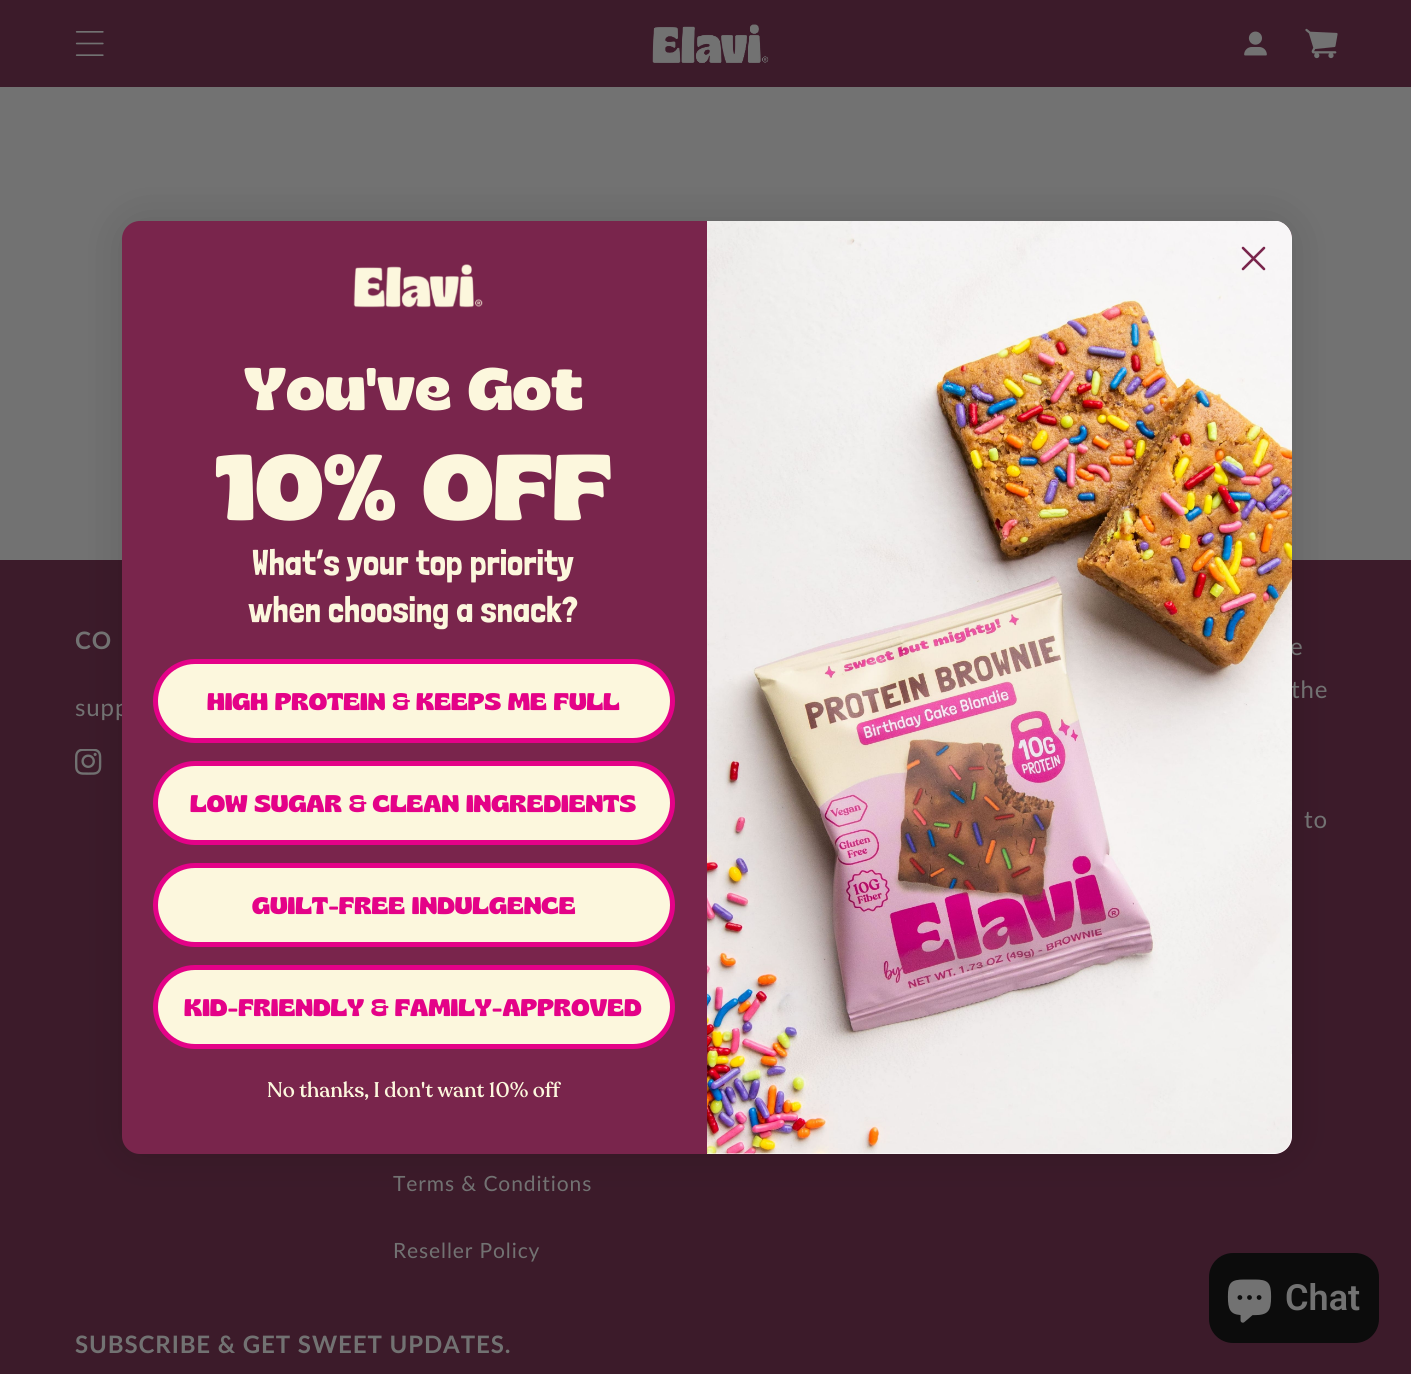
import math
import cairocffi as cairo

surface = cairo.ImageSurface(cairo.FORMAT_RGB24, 1411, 1374)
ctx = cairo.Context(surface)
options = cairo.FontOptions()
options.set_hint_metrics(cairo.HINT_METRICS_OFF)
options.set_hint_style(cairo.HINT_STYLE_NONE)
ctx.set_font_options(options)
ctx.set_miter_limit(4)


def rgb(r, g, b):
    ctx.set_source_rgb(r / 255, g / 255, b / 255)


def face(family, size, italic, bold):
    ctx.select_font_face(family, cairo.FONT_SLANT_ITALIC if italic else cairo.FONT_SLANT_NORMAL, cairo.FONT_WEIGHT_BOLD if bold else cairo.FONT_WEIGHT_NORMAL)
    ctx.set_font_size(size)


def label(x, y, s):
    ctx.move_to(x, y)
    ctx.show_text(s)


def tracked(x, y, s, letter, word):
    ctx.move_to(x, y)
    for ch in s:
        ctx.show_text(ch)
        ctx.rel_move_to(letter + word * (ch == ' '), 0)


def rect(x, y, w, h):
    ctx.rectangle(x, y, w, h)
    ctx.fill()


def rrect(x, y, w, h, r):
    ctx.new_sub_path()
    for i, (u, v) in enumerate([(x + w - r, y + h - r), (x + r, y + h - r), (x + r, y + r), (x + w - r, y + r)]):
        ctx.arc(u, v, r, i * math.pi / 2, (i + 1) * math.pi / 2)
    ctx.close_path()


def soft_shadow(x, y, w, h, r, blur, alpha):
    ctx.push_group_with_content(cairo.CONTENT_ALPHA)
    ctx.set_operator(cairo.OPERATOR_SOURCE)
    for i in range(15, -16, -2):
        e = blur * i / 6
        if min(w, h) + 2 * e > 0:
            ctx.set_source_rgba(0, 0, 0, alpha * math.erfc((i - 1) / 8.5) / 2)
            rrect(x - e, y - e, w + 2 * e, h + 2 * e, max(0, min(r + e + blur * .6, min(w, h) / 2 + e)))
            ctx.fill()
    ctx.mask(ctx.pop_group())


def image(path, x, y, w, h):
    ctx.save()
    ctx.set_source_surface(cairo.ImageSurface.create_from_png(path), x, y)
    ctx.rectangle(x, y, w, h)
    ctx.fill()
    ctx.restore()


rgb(114, 114, 114)
ctx.paint()
rgb(60, 27, 42)
rect(0, 0, 1411, 87)
image('image0.png', 75, 31, 29, 25)
image('image1.png', 652, 24, 117, 39)
image('image2.png', 1244, 31, 23, 25)
image('image3.png', 1305, 28, 33, 31)
rect(0, 560, 1411, 814)
image('image6.png', 75, 749, 27, 26)
rgb(0, 0, 0)
soft_shadow(122, 221, 1170, 933, 18, 22.5, 0.15)
face('Lato', 24, 0, 0)
rgb(114, 114, 114)
tracked(75, 716, 'supp', 0.9, 0)
tracked(1290, 655, 'e', 0.9, 0)
tracked(1291, 698, 'the', 0.9, 0)
rgb(121, 37, 76)
rrect(122, 221, 1170, 933, 18)
ctx.fill()
rgb(255, 255, 255)
ctx.new_path()
ctx.move_to(707, 221)
ctx.line_to(1274, 221)
ctx.curve_to(1284, 221, 1292, 229, 1292, 239)
ctx.line_to(1292, 1136)
ctx.curve_to(1292, 1146, 1284, 1154, 1274, 1154)
ctx.line_to(707, 1154)
ctx.close_path()
ctx.fill()
image('image5.png', 707, 221, 585, 933)
ctx.new_path()
ctx.move_to(1243, 248)
ctx.line_to(1264, 269)
ctx.move_to(1243, 269)
ctx.line_to(1264, 248)
ctx.close_path()
rgb(121, 37, 76)
ctx.set_line_width(2.6)
ctx.set_line_cap(cairo.LINE_CAP_ROUND)
ctx.set_line_join(cairo.LINE_JOIN_ROUND)
ctx.stroke()
image('image4.png', 353, 264, 130, 44)
face('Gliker', 60, 0, 1)
rgb(252, 247, 221)
label(244, 410, 'You\'ve Got')
face('Gliker', 93, 0, 1)
label(215, 520, '10% OFF')
face('Londrina Solid', 36, 0, 0)
label(252, 575, 'What’s your top priority')
label(248, 622, 'when choosing a snack?')
rrect(155.5, 661.5, 517, 79, 39.5)
ctx.fill_preserve()
rgb(228, 2, 136)
ctx.set_line_width(5)
ctx.set_line_cap(cairo.LINE_CAP_BUTT)
ctx.set_line_join(cairo.LINE_JOIN_MITER)
ctx.stroke()
face('Gliker', 24, 0, 1)
label(207, 710, 'HIGH PROTEIN & KEEPS ME FULL')
rgb(252, 247, 221)
rrect(155.5, 763.5, 517, 79, 39.5)
ctx.fill_preserve()
rgb(228, 2, 136)
ctx.stroke()
label(190, 812, 'LOW SUGAR & CLEAN INGREDIENTS')
rgb(252, 247, 221)
rrect(155.5, 865.5, 517, 79, 39.5)
ctx.fill_preserve()
rgb(228, 2, 136)
ctx.stroke()
label(252, 914, 'GUILT-FREE INDULGENCE')
rgb(252, 247, 221)
rrect(155.5, 967.5, 517, 79, 39.5)
ctx.fill_preserve()
rgb(228, 2, 136)
ctx.stroke()
label(184, 1016, 'KID-FRIENDLY & FAMILY-APPROVED')
face('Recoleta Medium', 21, 0, 0)
rgb(252, 247, 221)
label(267, 1097, 'No thanks, I don\'t want 10% off')
face('Lato', 24, 0, 1)
rgb(114, 114, 114)
tracked(75, 649, 'CO', 0.9, 0)
face('Lato', 24, 0, 0)
tracked(1304, 828, 'to', 0.9, 0)
face('Lato', 21, 0, 0)
tracked(393, 1191, 'Terms & Conditions', 0.9, 0)
tracked(393, 1258, 'Reseller Policy', 0.9, 0)
face('Lato', 24, 0, 1)
tracked(75, 1353, 'SUBSCRIBE & GET SWEET UPDATES.', 0.9, 0)
rgb(12, 12, 12)
rrect(1209, 1253, 170, 90, 24)
ctx.fill()
image('image7.png', 1227, 1279, 45, 44)
face('Roboto SemiBold', 36, 0, 0)
rgb(114, 114, 114)
label(1285, 1310, 'Chat')
surface.write_to_png('render.png')
